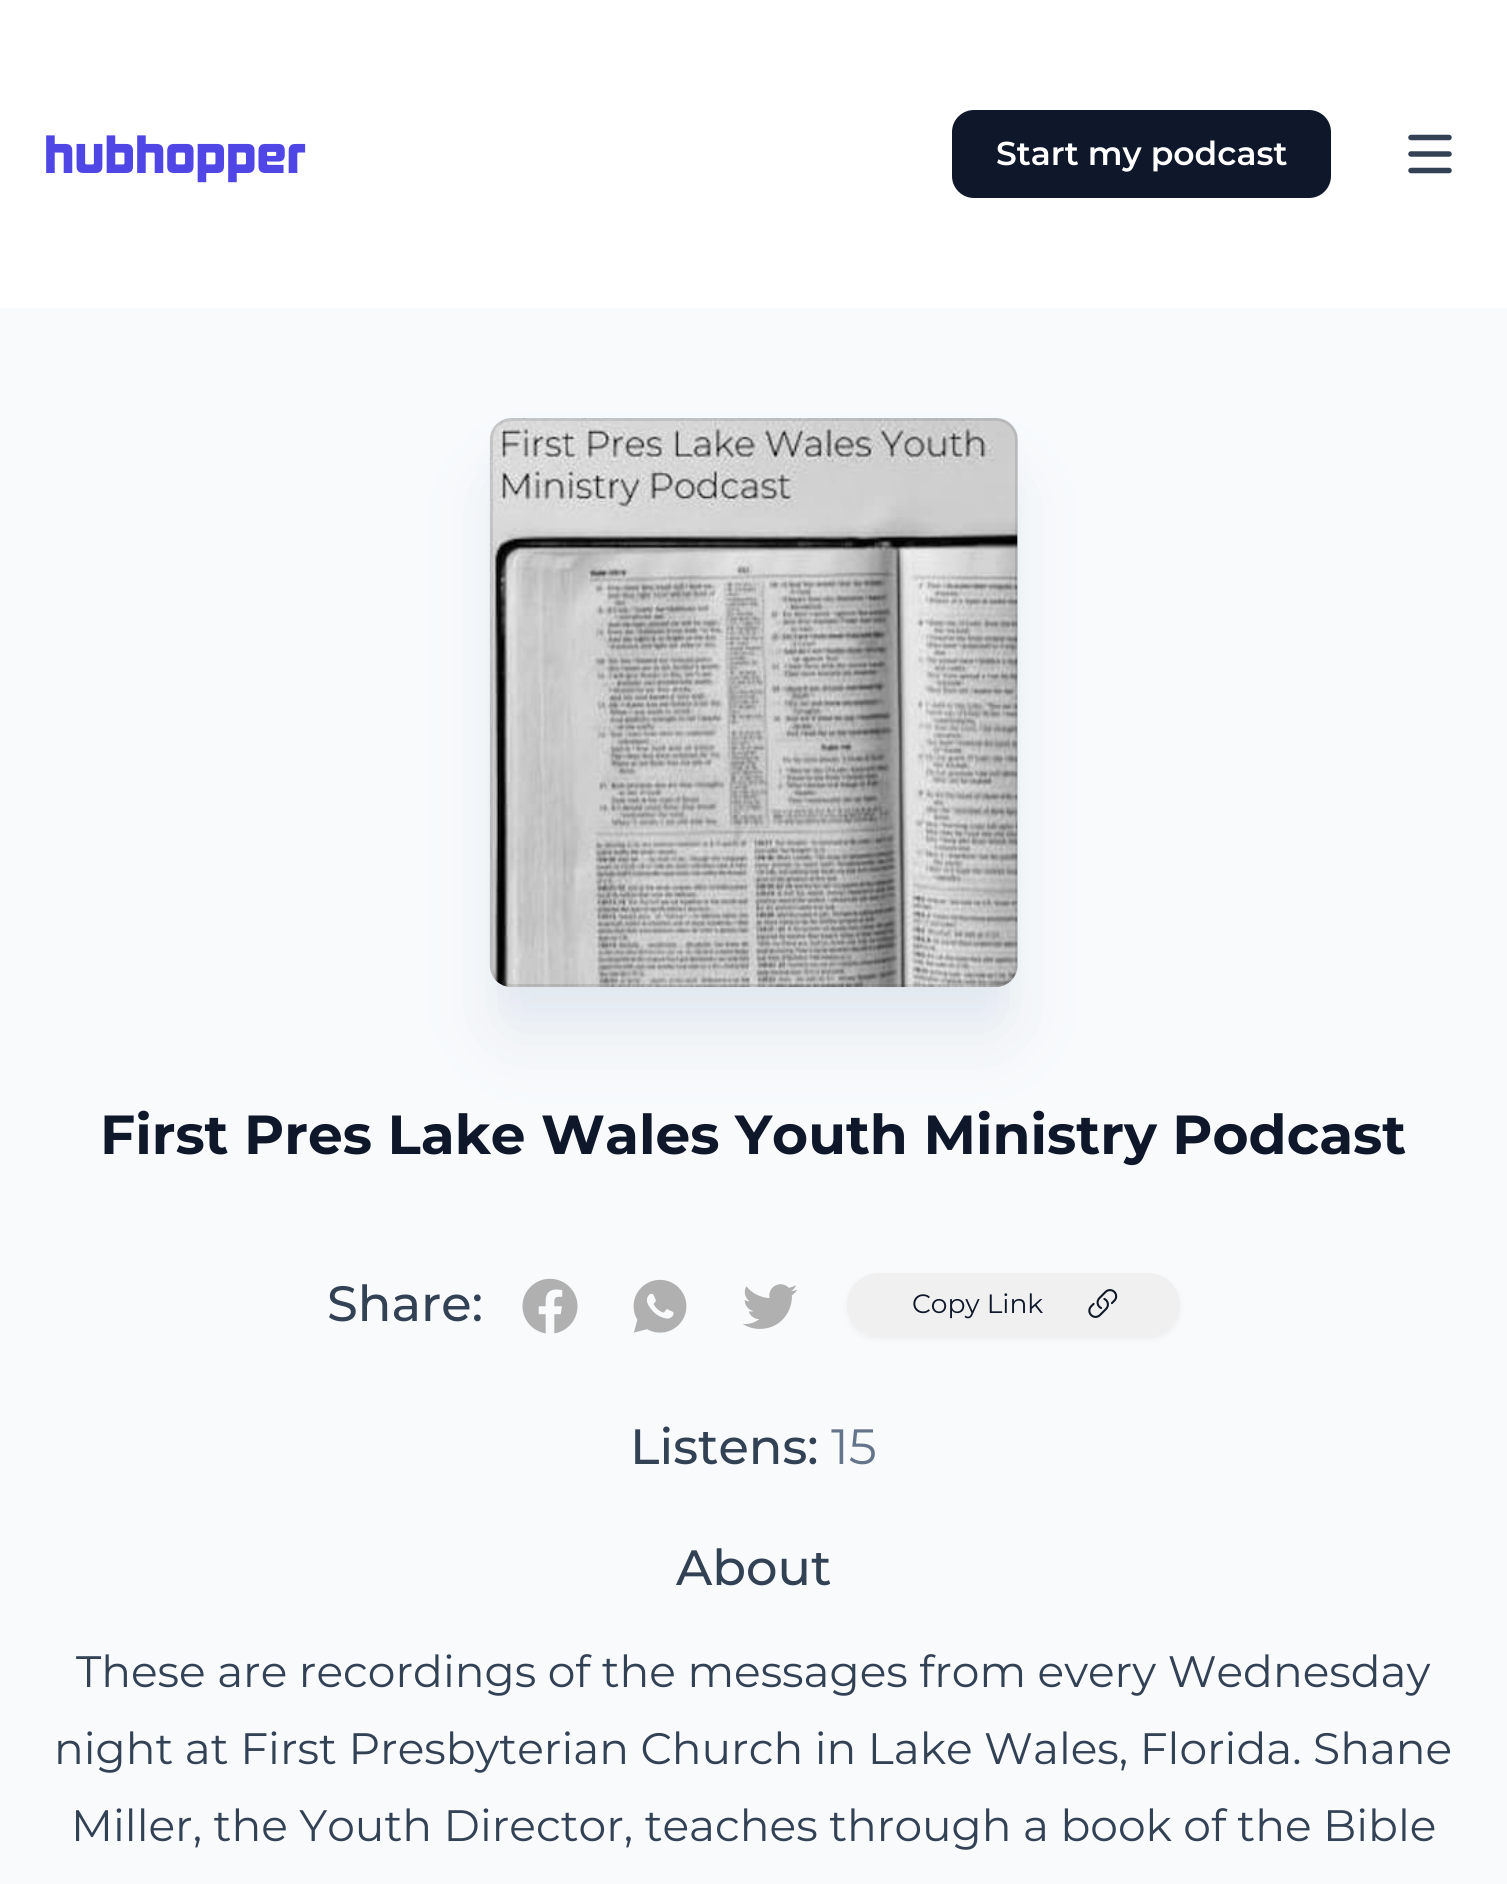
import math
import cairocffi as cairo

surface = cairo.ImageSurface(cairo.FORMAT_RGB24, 1507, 1884)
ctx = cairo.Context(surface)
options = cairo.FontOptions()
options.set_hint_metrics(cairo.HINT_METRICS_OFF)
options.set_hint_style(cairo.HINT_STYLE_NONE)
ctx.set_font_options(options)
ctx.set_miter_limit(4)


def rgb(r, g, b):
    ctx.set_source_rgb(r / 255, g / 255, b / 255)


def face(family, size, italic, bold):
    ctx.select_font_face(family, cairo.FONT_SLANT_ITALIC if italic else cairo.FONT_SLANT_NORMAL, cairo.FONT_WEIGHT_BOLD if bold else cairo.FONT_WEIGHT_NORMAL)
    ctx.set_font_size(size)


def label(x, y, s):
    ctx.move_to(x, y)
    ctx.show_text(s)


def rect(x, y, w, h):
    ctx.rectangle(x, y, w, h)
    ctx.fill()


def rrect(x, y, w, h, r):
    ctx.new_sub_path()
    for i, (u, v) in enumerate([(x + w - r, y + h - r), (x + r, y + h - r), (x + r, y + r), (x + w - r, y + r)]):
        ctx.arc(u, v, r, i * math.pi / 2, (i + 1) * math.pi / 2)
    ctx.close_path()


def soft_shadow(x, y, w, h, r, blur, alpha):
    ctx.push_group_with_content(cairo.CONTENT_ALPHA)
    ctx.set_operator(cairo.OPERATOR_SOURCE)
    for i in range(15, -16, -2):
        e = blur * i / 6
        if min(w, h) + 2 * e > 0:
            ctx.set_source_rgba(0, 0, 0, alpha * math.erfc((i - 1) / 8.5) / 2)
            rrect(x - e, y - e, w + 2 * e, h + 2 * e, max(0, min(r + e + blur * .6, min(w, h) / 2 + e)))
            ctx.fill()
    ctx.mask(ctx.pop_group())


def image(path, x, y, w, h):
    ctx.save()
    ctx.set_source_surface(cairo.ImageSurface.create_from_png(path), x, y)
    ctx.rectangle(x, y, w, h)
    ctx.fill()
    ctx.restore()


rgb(255, 255, 255)
ctx.paint()
face('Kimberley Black', 49.5, 0, 0)
rgb(79, 70, 229)
label(44, 173, 'hubhopper')
rgb(15, 23, 42)
rrect(952, 110, 379, 88, 22)
ctx.fill()
face('Montserrat SemiBold', 33, 0, 0)
rgb(255, 255, 255)
label(996, 165, 'Start my podcast')
ctx.new_path()
ctx.move_to(1411, 137.5)
ctx.line_to(1449, 137.5)
ctx.move_to(1411, 154)
ctx.line_to(1449, 154)
ctx.move_to(1411, 170.5)
ctx.line_to(1449, 170.5)
rgb(51, 65, 85)
ctx.set_line_width(5.5)
ctx.set_line_cap(cairo.LINE_CAP_ROUND)
ctx.stroke()
rgb(248, 250, 252)
rect(0, 308, 1507, 1576)
rgb(226, 232, 240)
soft_shadow(506, 457, 495, 536, 6, 14, 1)
soft_shadow(503, 487, 501, 542, 8, 34.5, 1)
rgb(226, 232, 240)
rrect(490, 418, 528, 569, 22)
ctx.fill()
image('image0.png', 489, 418, 529, 570)
rrect(491.5, 419.5, 525, 566, 20.5)
ctx.set_source_rgba(0, 0, 0, 0.1)
ctx.set_line_width(3)
ctx.set_line_cap(cairo.LINE_CAP_BUTT)
ctx.stroke()
face('Montserrat', 55, 0, 1)
rgb(15, 23, 42)
label(100, 1154, 'First Pres Lake Wales Youth Ministry Podcast')
face('Montserrat Medium', 49.5, 0, 0)
rgb(51, 65, 85)
label(327, 1321, 'Share:')
image('image1.png', 522, 1278, 56, 56)
image('image2.png', 633, 1279, 54, 54)
image('image3.png', 743, 1284, 55, 45)
rgb(0, 0, 0)
soft_shadow(847, 1276, 333, 63, 31.5, 3, 0.05)
rgb(240, 240, 240)
rrect(847, 1273, 333, 64, 32)
ctx.fill()
face('Montserrat', 26.5, 0, 0)
rgb(15, 23, 42)
label(912, 1313, 'Copy Link')
image('image4.png', 1088, 1289, 30, 29)
face('Montserrat Medium', 49.5, 0, 0)
rgb(51, 65, 85)
label(630, 1464, 'Listens:')
face('Montserrat', 49.5, 0, 0)
rgb(100, 116, 139)
label(831, 1464, '15')
face('Montserrat Medium', 49.5, 0, 0)
rgb(51, 65, 85)
label(676, 1585, 'About')
face('Montserrat', 44, 0, 0)
label(76, 1687, 'These are recordings of the messages from every Wednesday')
label(54, 1764, 'night at First Presbyterian Church in Lake Wales, Florida. Shane')
label(71, 1841, 'Miller, the Youth Director, teaches through a book of the Bible')
surface.write_to_png('render.png')
